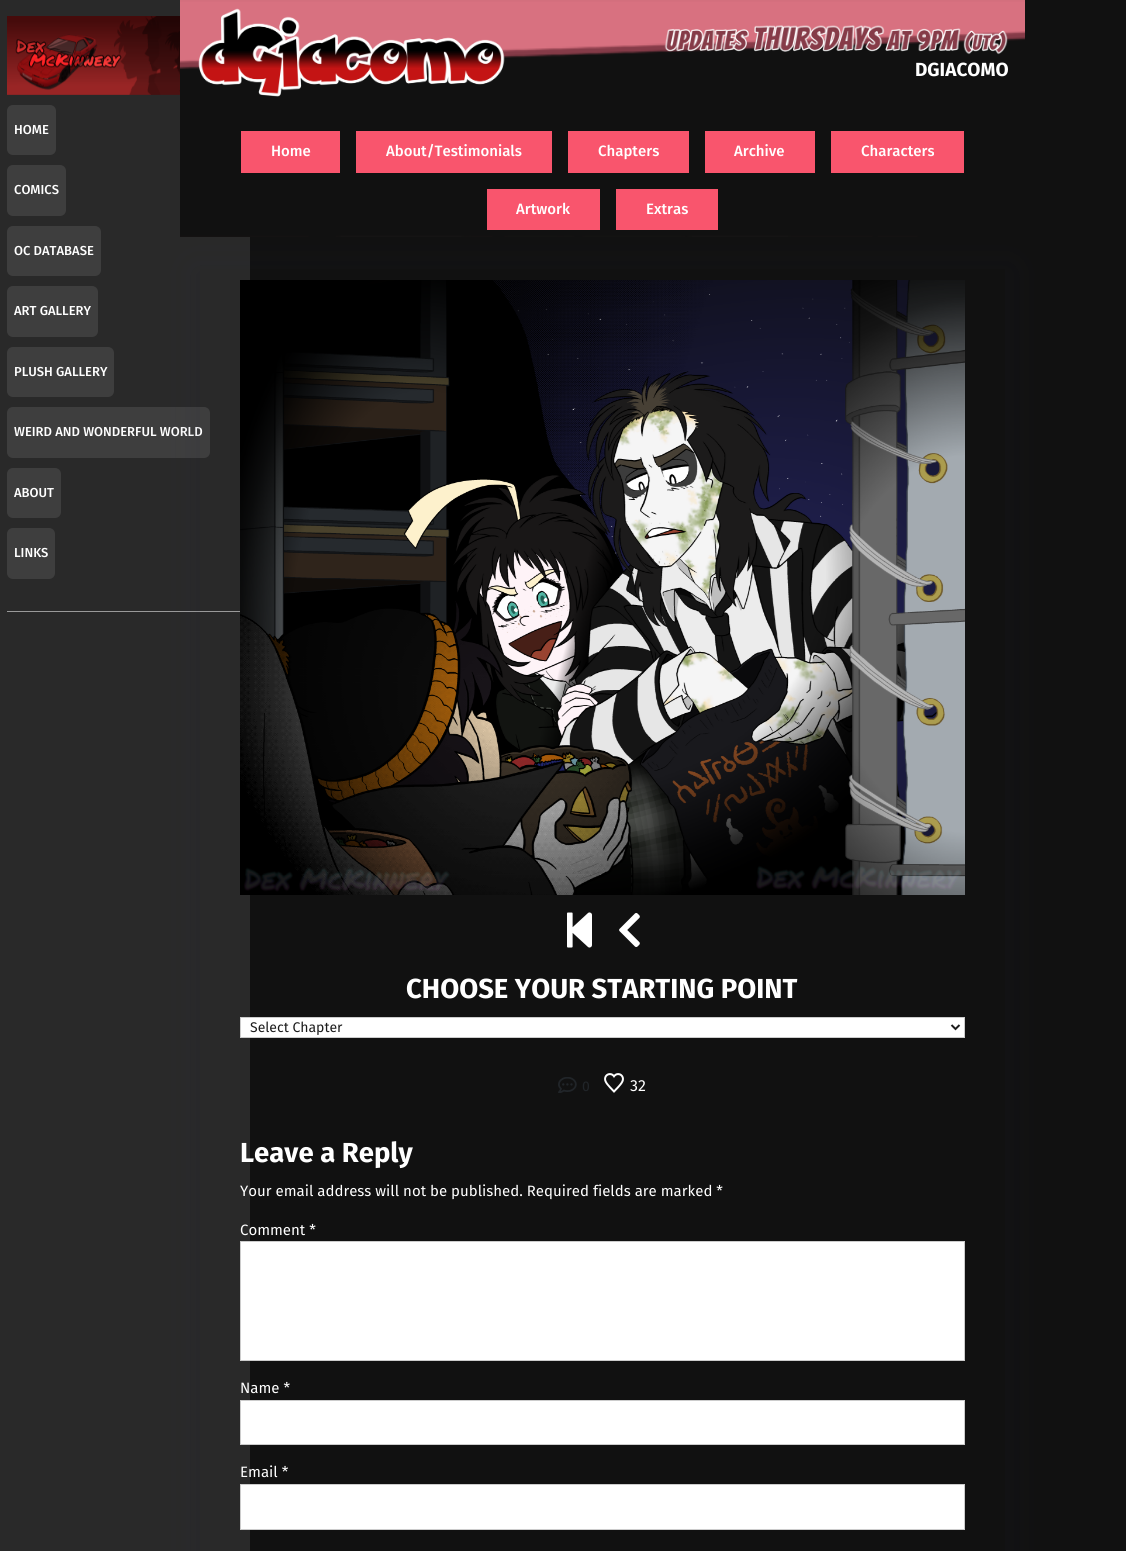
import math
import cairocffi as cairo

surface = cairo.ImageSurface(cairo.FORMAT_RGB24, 1126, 1551)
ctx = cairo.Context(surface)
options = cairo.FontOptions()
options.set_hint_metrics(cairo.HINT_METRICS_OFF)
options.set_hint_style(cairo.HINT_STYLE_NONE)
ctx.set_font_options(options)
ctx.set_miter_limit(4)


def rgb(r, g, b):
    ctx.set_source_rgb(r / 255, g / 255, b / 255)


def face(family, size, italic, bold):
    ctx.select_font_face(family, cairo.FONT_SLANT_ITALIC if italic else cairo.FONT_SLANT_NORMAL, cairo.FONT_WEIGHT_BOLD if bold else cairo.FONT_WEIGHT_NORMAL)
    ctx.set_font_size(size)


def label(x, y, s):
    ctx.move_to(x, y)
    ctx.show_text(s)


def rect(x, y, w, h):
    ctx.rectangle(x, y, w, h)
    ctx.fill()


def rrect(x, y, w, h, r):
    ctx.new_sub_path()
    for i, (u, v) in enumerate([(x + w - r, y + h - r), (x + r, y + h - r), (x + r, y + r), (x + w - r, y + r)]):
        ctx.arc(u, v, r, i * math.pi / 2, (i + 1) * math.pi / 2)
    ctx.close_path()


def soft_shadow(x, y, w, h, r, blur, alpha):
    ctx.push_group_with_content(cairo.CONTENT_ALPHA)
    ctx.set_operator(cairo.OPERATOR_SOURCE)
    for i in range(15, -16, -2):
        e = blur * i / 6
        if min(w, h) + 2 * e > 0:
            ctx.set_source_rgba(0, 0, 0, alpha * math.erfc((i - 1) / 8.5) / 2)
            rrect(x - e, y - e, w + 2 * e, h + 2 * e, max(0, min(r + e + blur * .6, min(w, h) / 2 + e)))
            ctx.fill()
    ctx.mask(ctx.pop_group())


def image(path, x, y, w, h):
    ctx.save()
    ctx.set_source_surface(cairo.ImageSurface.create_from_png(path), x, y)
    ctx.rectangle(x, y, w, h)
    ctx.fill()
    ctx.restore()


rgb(17, 17, 17)
ctx.paint()
rgb(41, 41, 41)
rect(0, 0, 250, 1551)
image('image0.png', 7, 16, 173, 79)
rgb(62, 62, 62)
rrect(7, 105, 49, 50, 6)
ctx.fill()
face('Fira Sans Medium', 13, 0, 0)
rgb(255, 255, 255)
label(14, 134, 'HOME')
rgb(62, 62, 62)
rrect(7, 165, 59, 51, 6)
ctx.fill()
rgb(255, 255, 255)
label(14, 194, 'COMICS')
rgb(62, 62, 62)
rrect(7, 226, 94, 50, 6)
ctx.fill()
rgb(255, 255, 255)
label(14, 255, 'OC DATABASE')
rgb(62, 62, 62)
rrect(7, 286, 91, 51, 6)
ctx.fill()
rgb(255, 255, 255)
label(14, 315, 'ART GALLERY')
rgb(62, 62, 62)
rrect(7, 347, 107, 50, 6)
ctx.fill()
rgb(255, 255, 255)
label(14, 376, 'PLUSH GALLERY')
rgb(62, 62, 62)
rrect(7, 407, 203, 51, 6)
ctx.fill()
rgb(255, 255, 255)
label(14, 436, 'WEIRD AND WONDERFUL WORLD')
rgb(62, 62, 62)
rrect(7, 468, 54, 50, 6)
ctx.fill()
rgb(255, 255, 255)
label(14, 497, 'ABOUT')
rgb(62, 62, 62)
rrect(7, 528, 48, 51, 6)
ctx.fill()
rgb(255, 255, 255)
label(14, 557, 'LINKS')
rgb(153, 153, 153)
rect(7, 611, 236, 1)
image('image1.png', 180, 0, 845, 237)
image('image2.png', 198, 8, 307, 89)
image('image3.png', 664, 25, 344, 30)
face('Fira Sans', 19, 0, 1)
rgb(255, 255, 255)
label(915, 76, 'DGIACOMO')
rgb(249, 85, 109)
rect(241, 131, 99, 42)
face('Fira Sans Medium', 15, 0, 0)
rgb(255, 255, 255)
label(271, 156, 'Home')
rgb(249, 85, 109)
rect(356, 131, 196, 42)
rgb(255, 255, 255)
label(386, 156, 'About/Testimonials')
rgb(249, 85, 109)
rect(568, 131, 121, 42)
rgb(255, 255, 255)
label(598, 156, 'Chapters')
rgb(249, 85, 109)
rect(705, 131, 110, 42)
rgb(255, 255, 255)
label(734, 156, 'Archive')
rgb(249, 85, 109)
rect(831, 131, 133, 42)
rgb(255, 255, 255)
label(861, 156, 'Characters')
rgb(249, 85, 109)
rect(487, 189, 113, 41)
rgb(255, 255, 255)
label(516, 214, 'Artwork')
rgb(249, 85, 109)
rect(616, 189, 102, 41)
rgb(255, 255, 255)
label(646, 214, 'Extras')
ctx.save()
ctx.set_fill_rule(cairo.FILL_RULE_EVEN_ODD)
ctx.new_path()
ctx.move_to(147, 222)
ctx.line_to(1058, 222)
ctx.line_to(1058, 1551)
ctx.line_to(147, 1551)
ctx.close_path()
ctx.move_to(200, 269)
ctx.line_to(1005, 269)
ctx.line_to(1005, 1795)
ctx.line_to(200, 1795)
ctx.close_path()
ctx.clip()
rgb(33, 37, 71)
soft_shadow(193, 268, 819, 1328, 0, 15, 0.1)
ctx.restore()
image('image4.png', 240, 280, 725, 615)
image('image5.png', 567, 912, 25, 36)
image('image6.png', 619, 913, 21, 34)
face('Fira Sans', 27.5, 0, 1)
label(406, 998, 'CHOOSE YOUR STARTING POINT')
ctx.rectangle(240.5, 1017.5, 724, 20)
ctx.fill_preserve()
rgb(204, 204, 204)
ctx.set_line_width(1)
ctx.stroke()
ctx.new_path()
ctx.move_to(951.5, 1025)
ctx.line_to(955.5, 1029)
ctx.line_to(959.5, 1025)
rgb(28, 28, 28)
ctx.set_line_width(2)
ctx.stroke()
face('Fira Sans', 14, 0, 0)
label(250, 1032, 'Select Chapter')
image('image7.png', 558, 1077, 19, 16)
rgb(33, 37, 41)
label(582, 1091, '0')
image('image8.png', 604, 1073, 20, 20)
face('Fira Sans', 16, 0, 0)
rgb(255, 255, 255)
label(630, 1091, '32')
face('Fira Sans', 27.5, 0, 1)
label(240, 1162, 'Leave a Reply')
face('Fira Sans', 15, 0, 0)
label(240, 1196, 'Your email address will not be published. Required fields are marked *')
label(240, 1235, 'Comment *')
ctx.rectangle(240.5, 1241.5, 724, 119)
ctx.fill_preserve()
rgb(204, 204, 204)
ctx.set_line_width(1)
ctx.stroke()
rgb(255, 255, 255)
label(240, 1393, 'Name *')
ctx.rectangle(240.5, 1400.5, 724, 44)
ctx.fill_preserve()
rgb(204, 204, 204)
ctx.stroke()
rgb(255, 255, 255)
label(240, 1477, 'Email *')
ctx.rectangle(240.5, 1484.5, 724, 45)
ctx.fill_preserve()
rgb(204, 204, 204)
ctx.stroke()
surface.write_to_png('render.png')
